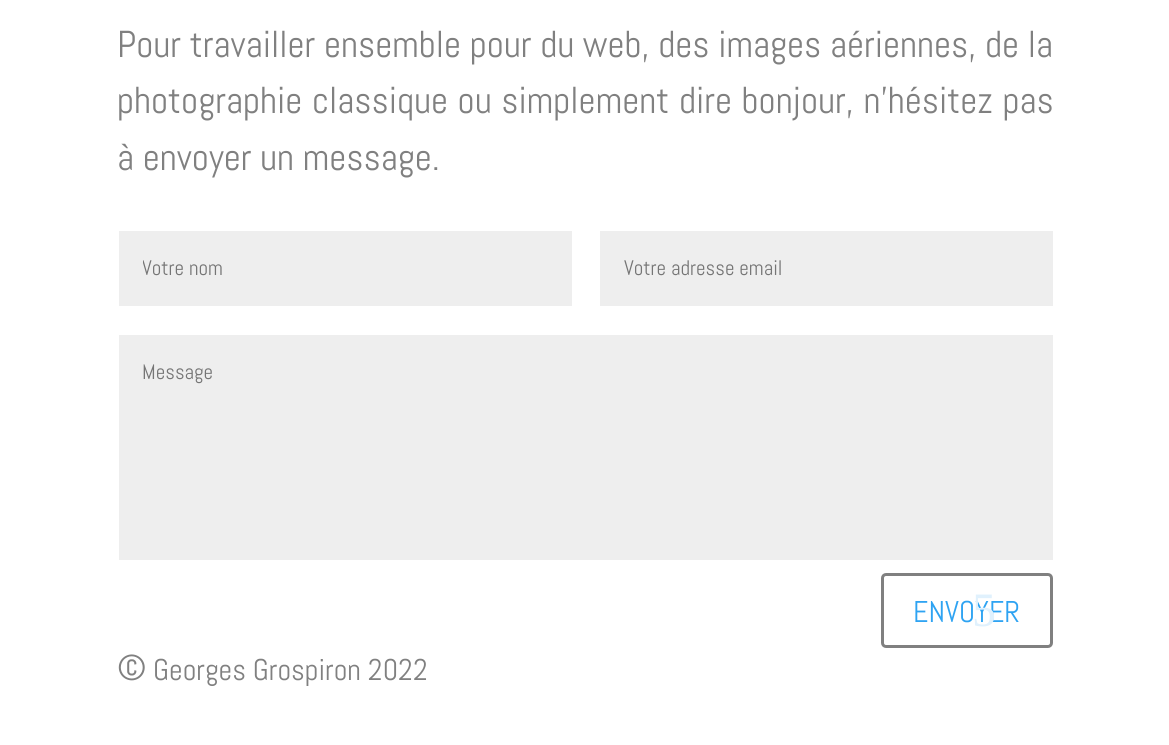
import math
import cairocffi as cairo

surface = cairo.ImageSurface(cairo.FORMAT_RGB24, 1169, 745)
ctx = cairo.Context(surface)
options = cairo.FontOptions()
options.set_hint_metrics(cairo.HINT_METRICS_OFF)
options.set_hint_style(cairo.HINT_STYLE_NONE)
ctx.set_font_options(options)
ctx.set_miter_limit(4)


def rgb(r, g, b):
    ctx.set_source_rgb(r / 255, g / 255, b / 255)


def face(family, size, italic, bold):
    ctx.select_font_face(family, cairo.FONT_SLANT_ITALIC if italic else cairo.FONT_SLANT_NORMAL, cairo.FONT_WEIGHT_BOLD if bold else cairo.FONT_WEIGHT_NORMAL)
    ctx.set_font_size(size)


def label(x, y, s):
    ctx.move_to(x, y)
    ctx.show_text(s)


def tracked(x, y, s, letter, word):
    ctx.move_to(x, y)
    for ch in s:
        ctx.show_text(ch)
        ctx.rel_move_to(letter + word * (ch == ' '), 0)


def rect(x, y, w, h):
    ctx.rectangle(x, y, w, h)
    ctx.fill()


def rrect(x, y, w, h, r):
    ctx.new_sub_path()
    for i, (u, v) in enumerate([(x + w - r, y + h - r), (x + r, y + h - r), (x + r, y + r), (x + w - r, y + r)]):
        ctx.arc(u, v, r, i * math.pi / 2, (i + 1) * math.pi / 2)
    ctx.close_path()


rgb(255, 255, 255)
ctx.paint()
face('Abel', 37.5, 0, 0)
rgb(128, 128, 128)
label(117, 57, 'Pour travailler ensemble pour du web, des images aériennes, de la')
tracked(117, 113, 'photographie classique ou simplement dire bonjour, n’hésitez pas', 0, 1)
label(117, 170, 'à envoyer un message.')
rgb(238, 238, 238)
rect(119, 231, 453, 75)
ctx.save()
ctx.rectangle(143, 255, 405, 27)
ctx.clip()
face('Abel', 21, 0, 0)
rgb(117, 117, 117)
label(142, 275, 'Votre nom')
ctx.restore()
rect(600, 231, 453, 75)
face('Abel', 21, 0, 0)
rgb(117, 117, 117)
label(624, 275, 'Votre adresse email')
rgb(238, 238, 238)
rect(119, 335, 934, 225)
rgb(117, 117, 117)
label(142, 379, 'Message')
rrect(882.5, 574.5, 169, 72, 3.5)
rgb(128, 128, 128)
ctx.set_line_width(3)
ctx.stroke()
face('Abel', 30, 0, 0)
rgb(46, 163, 242)
label(913, 622, 'ENVOYER')
face('Liberation Serif', 48, 0, 0)
rgb(224, 241, 253)
label(972, 626, '5')
face('Abel', 36, 0, 0)
rgb(128, 128, 128)
label(117, 680, '©')
face('Abel', 30, 0, 0)
label(153, 680, 'Georges Grospiron 2022')
surface.write_to_png('render.png')
